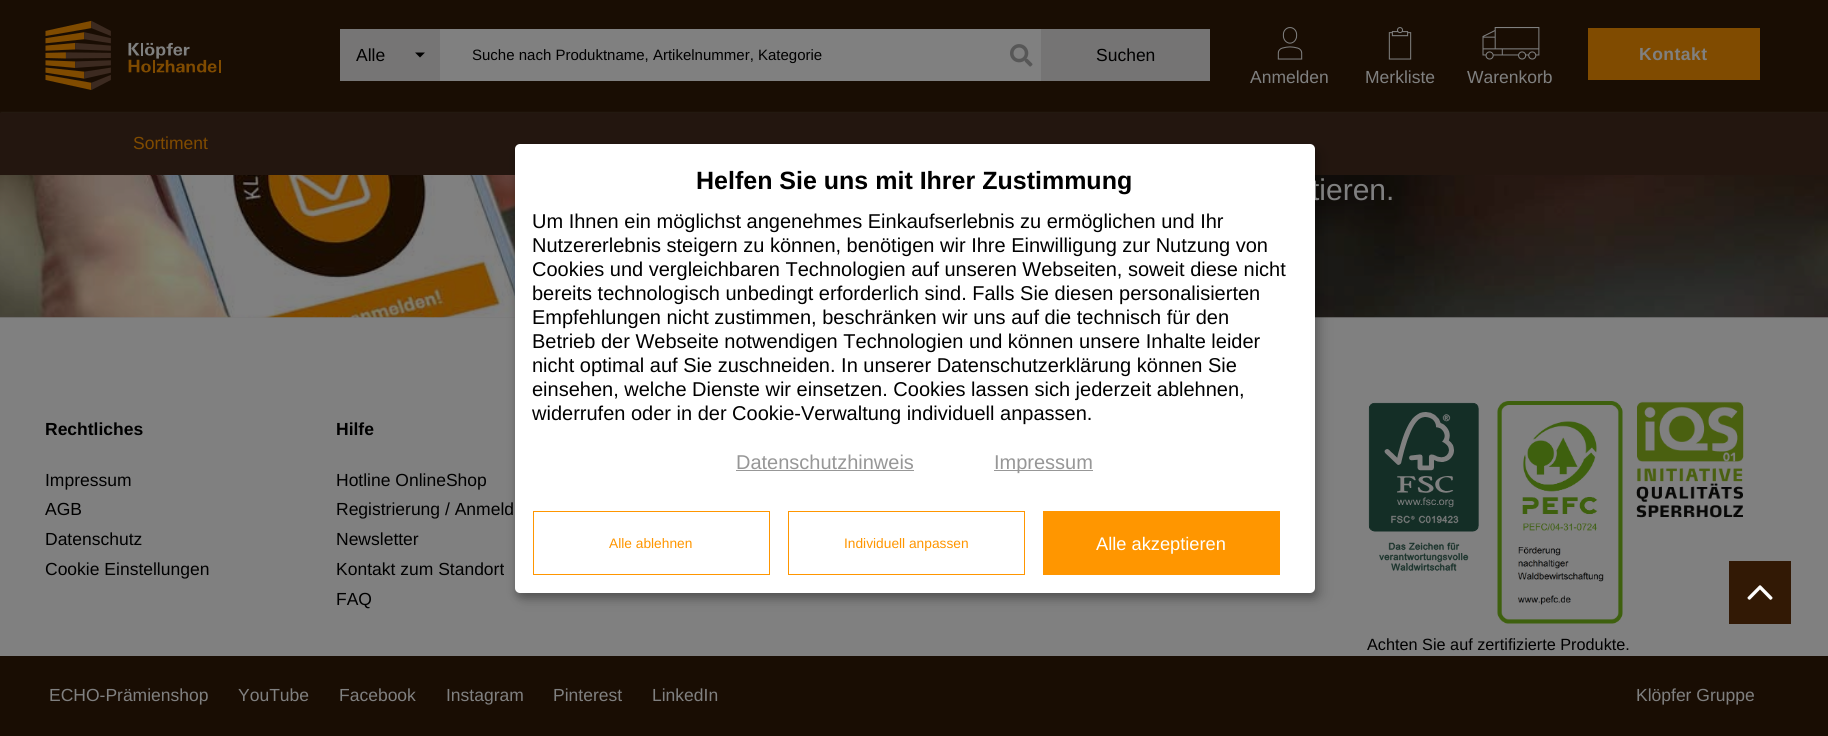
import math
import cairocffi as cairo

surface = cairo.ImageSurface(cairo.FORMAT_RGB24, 1828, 736)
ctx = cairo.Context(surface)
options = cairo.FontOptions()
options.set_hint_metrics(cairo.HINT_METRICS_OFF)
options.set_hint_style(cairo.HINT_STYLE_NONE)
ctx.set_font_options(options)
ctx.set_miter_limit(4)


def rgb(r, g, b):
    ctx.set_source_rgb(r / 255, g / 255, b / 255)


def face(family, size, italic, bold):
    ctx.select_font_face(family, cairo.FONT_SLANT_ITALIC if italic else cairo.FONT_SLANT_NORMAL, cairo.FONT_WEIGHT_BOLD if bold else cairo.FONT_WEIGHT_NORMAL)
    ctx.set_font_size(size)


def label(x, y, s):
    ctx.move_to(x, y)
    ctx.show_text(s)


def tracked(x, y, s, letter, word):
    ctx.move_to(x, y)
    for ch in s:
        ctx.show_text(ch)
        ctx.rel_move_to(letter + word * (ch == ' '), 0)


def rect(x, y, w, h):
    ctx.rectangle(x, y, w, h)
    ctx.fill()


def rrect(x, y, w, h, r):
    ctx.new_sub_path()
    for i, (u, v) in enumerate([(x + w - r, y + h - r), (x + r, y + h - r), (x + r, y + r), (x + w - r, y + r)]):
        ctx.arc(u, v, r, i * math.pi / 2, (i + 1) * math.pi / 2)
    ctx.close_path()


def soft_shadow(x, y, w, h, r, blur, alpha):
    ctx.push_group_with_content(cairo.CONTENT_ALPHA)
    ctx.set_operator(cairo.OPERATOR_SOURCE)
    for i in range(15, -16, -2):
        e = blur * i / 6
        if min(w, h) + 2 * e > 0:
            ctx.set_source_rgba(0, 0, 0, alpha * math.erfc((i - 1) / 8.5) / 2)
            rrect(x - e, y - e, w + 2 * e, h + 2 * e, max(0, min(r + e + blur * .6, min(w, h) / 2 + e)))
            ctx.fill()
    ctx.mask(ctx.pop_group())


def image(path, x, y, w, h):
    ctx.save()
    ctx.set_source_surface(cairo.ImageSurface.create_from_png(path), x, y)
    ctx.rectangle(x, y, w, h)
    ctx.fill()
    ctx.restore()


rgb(128, 128, 128)
ctx.paint()
rgb(25, 13, 3)
rect(0, 0, 1828, 113)
image('image0.png', 45, 20, 176, 70)
rgb(118, 117, 117)
rect(340, 29, 100, 52)
face('Liberation Sans', 17.5, 0, 0)
rgb(0, 0, 0)
label(356, 61, 'Alle')
ctx.new_path()
ctx.move_to(415, 52.5)
ctx.line_to(425, 52.5)
ctx.line_to(420, 57.5)
ctx.close_path()
ctx.fill()
rgb(128, 128, 128)
rect(440, 29, 601, 52)
face('Liberation Sans', 15, 0, 0)
rgb(0, 0, 0)
label(472, 60, 'Suche nach Produktname, Artikelnummer, Kategorie')
rgb(117, 116, 116)
rect(1041, 29, 169, 52)
image('image1.png', 1010, 44, 23, 23)
face('Liberation Sans', 17.5, 0, 0)
rgb(0, 0, 0)
label(1096, 61, 'Suchen')
rgb(128, 75, 0)
rect(1588, 28, 172, 52)
face('Liberation Sans', 17.5, 0, 1)
rgb(128, 128, 128)
tracked(1639, 60, 'Kontakt', 0.5, 0)
image('image2.png', 1277, 27, 26, 33)
face('Liberation Sans', 17.5, 0, 0)
label(1250, 83, 'Anmelden')
image('image3.png', 1388, 27, 24, 33)
label(1365, 83, 'Merkliste')
image('image4.png', 1482, 27, 58, 33)
label(1467, 83, 'Warenkorb')
rgb(123, 123, 123)
rect(0, 317, 1828, 1)
image('image5.png', 0, 175, 1828, 143)
rgb(128, 128, 128)
soft_shadow(1, 113, 1827, 60, 0, 1, 0.3)
rgb(35, 22, 15)
rect(0, 113, 1828, 62)
rgb(128, 75, 0)
label(133, 149, 'Sortiment')
rgb(0, 0, 0)
soft_shadow(521, 150, 800, 449, 5, 6, 0.19)
soft_shadow(515, 149, 800, 449, 5, 4, 0.2)
face('Liberation Sans', 30, 0, 0)
rgb(128, 128, 128)
label(1311, 200, 'tieren.')
rgb(255, 255, 255)
rrect(515, 144, 800, 449, 5)
ctx.fill()
face('Liberation Sans', 25, 0, 1)
rgb(0, 0, 0)
label(696, 189, 'Helfen Sie uns mit Ihrer Zustimmung')
face('Liberation Sans', 20, 0, 0)
label(532, 228, 'Um Ihnen ein möglichst angenehmes Einkaufserlebnis zu ermöglichen und Ihr')
label(532, 252, 'Nutzererlebnis steigern zu können, benötigen wir Ihre Einwilligung zur Nutzung von')
label(532, 276, 'Cookies und vergleichbaren Technologien auf unseren Webseiten, soweit diese nicht')
label(532, 300, 'bereits technologisch unbedingt erforderlich sind. Falls Sie diesen personalisierten')
label(532, 324, 'Empfehlungen nicht zustimmen, beschränken wir uns auf die technisch für den')
label(532, 348, 'Betrieb der Webseite notwendigen Technologien und können unsere Inhalte leider')
label(532, 372, 'nicht optimal auf Sie zuschneiden. In unserer Datenschutzerklärung können Sie')
label(532, 396, 'einsehen, welche Dienste wir einsetzen. Cookies lassen sich jederzeit ablehnen,')
label(532, 420, 'widerrufen oder in der Cookie-Verwaltung individuell anpassen.')
rgb(151, 151, 151)
label(736, 469, 'Datenschutzhinweis')
rect(736, 470, 178, 1)
rect(994, 470, 99, 1)
label(994, 469, 'Impressum')
ctx.rectangle(533.5, 511.5, 236, 63)
rgb(255, 150, 0)
ctx.set_line_width(1)
ctx.stroke()
face('Liberation Sans', 13.75, 0, 0)
label(609, 548, 'Alle ablehnen')
ctx.rectangle(788.5, 511.5, 236, 63)
ctx.stroke()
label(844, 548, 'Individuell anpassen')
rect(1043, 511, 237, 64)
face('Liberation Sans', 18.25, 0, 0)
rgb(255, 255, 255)
label(1096, 550, 'Alle akzeptieren')
face('Liberation Sans', 17.5, 0, 1)
rgb(0, 0, 0)
label(45, 435, 'Rechtliches')
face('Liberation Sans', 17.5, 0, 0)
label(45, 486, 'Impressum')
label(45, 515, 'AGB')
label(45, 545, 'Datenschutz')
label(45, 575, 'Cookie Einstellungen')
face('Liberation Sans', 17.5, 0, 1)
label(336, 435, 'Hilfe')
face('Liberation Sans', 17.5, 0, 0)
label(336, 486, 'Hotline OnlineShop')
label(336, 515, 'Registrierung / Anmeld')
label(336, 545, 'Newsletter')
label(336, 575, 'Kontakt zum Standort')
label(336, 605, 'FAQ')
image('image6.png', 1368, 402, 111, 169)
image('image7.png', 1497, 401, 126, 223)
image('image8.png', 1636, 401, 108, 117)
face('Liberation Sans', 16.25, 0, 0)
label(1367, 650, 'Achten Sie auf zertifizierte Produkte.')
rgb(25, 13, 3)
rect(0, 656, 1828, 80)
face('Liberation Sans', 17.5, 0, 0)
rgb(128, 128, 128)
label(49, 701, 'ECHO-Prämienshop')
label(238, 701, 'YouTube')
label(339, 701, 'Facebook')
label(446, 701, 'Instagram')
label(553, 701, 'Pinterest')
label(652, 701, 'LinkedIn')
label(1636, 701, 'Klöpfer Gruppe')
rgb(50, 25, 5)
rect(1729, 561, 62, 63)
image('image9.png', 1747, 585, 26, 15)
surface.write_to_png('render.png')
